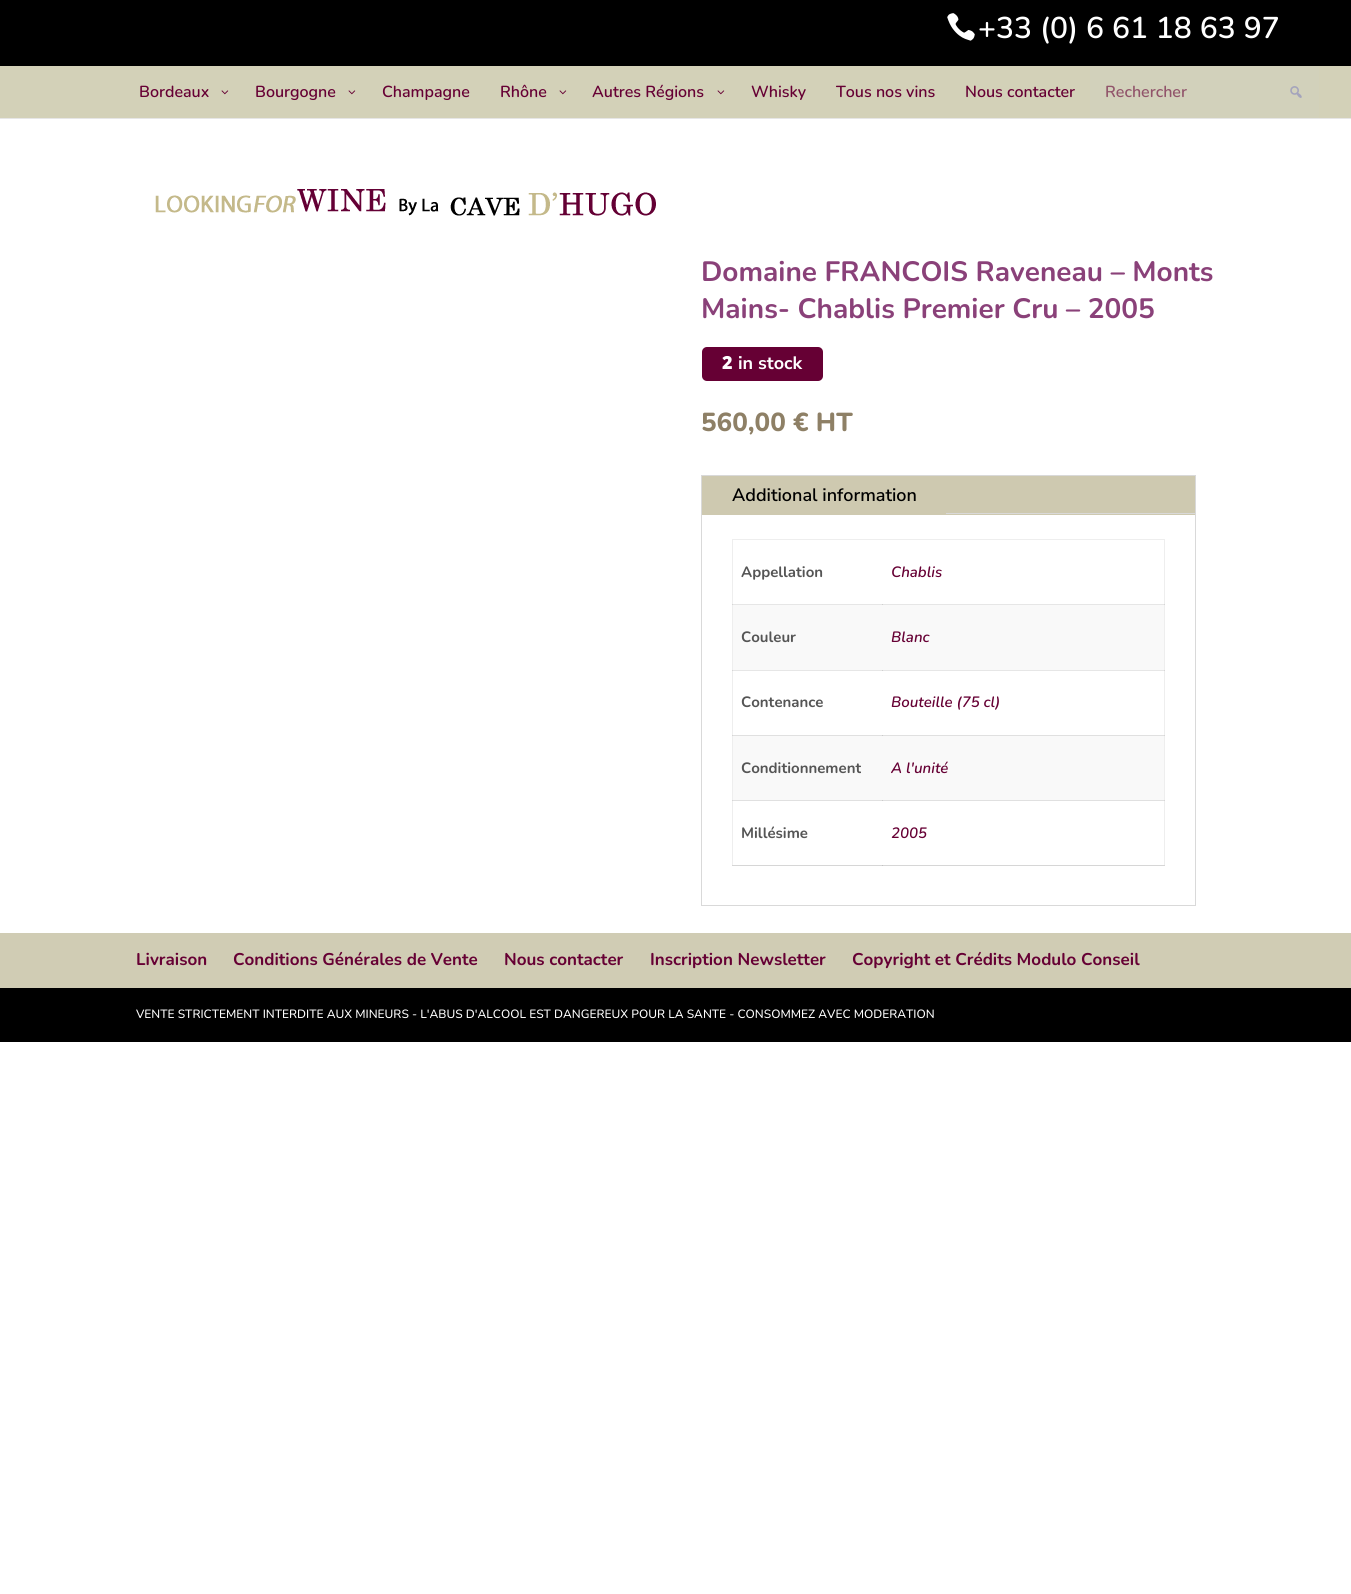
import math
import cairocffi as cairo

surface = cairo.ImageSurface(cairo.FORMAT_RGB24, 1351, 1594)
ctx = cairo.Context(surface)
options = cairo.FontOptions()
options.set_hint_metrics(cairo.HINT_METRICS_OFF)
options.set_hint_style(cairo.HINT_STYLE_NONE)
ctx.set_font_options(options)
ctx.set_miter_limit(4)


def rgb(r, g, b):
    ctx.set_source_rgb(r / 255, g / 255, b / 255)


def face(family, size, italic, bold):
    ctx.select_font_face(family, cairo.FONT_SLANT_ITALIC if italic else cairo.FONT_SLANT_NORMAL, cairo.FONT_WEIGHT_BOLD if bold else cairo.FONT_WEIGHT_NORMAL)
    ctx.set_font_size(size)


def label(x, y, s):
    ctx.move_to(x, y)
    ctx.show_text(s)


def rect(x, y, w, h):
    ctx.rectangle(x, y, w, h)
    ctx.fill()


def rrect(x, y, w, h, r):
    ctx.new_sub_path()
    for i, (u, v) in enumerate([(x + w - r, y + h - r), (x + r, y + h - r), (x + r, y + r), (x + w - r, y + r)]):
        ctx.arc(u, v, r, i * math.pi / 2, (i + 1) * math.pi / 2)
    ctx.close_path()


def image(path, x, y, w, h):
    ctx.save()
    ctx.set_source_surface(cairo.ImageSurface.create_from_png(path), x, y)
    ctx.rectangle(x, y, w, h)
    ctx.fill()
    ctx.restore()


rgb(255, 255, 255)
ctx.paint()
rgb(230, 230, 230)
rect(732, 604, 433, 1)
rgb(207, 207, 207)
rect(882, 604, 1, 1)
rgb(230, 230, 230)
rect(732, 670, 433, 1)
rgb(207, 207, 207)
rect(882, 670, 1, 1)
rgb(0, 0, 0)
rect(0, 0, 1351, 66)
image('image0.png', 947, 13, 28, 28)
face('Nunito SemiBold', 30, 0, 0)
rgb(255, 255, 255)
label(978, 38, '+33 (0) 6 61 18 63 97')
rgb(230, 230, 230)
rect(0, 118, 1351, 1)
rgb(211, 209, 184)
rect(0, 66, 1351, 52)
face('Nunito SemiBold', 16, 0, 0)
rgb(102, 0, 52)
label(139, 97, 'Bordeaux')
image('image1.png', 221, 90, 8, 5)
label(255, 97, 'Bourgogne')
image('image1.png', 348, 90, 8, 5)
label(382, 97, 'Champagne')
label(500, 97, 'Rhône')
image('image1.png', 559, 90, 8, 5)
label(592, 97, 'Autres Régions')
image('image1.png', 717, 90, 8, 5)
label(751, 97, 'Whisky')
label(836, 97, 'Tous nos vins')
label(965, 97, 'Nous contacter')
rgb(210, 209, 187)
rect(1090, 66, 229, 52)
rgb(145, 84, 106)
label(1105, 97, 'Rechercher')
image('image2.png', 1290, 86, 12, 12)
image('image3.png', 155, 189, 501, 27)
face('Nunito ExtraLight', 28, 0, 0)
rgb(138, 65, 121)
label(701, 281, 'Domaine FRANCOIS Raveneau – Monts')
label(701, 318, 'Mains- Chablis Premier Cru – 2005')
rgb(102, 0, 52)
rrect(702, 347, 121, 34, 5)
ctx.fill()
face('Noto Sans Black', 18, 0, 0)
rgb(255, 255, 255)
label(722, 369, '2')
face('Nunito Sans ExtraLight', 18, 0, 0)
label(738, 369, 'in stock')
face('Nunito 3 ExtraLight', 26, 0, 0)
rgb(142, 128, 102)
label(701, 431, '560,00 € HT')
ctx.rectangle(701.5, 475.5, 494, 430)
rgb(217, 217, 217)
ctx.set_line_width(1)
ctx.stroke()
rgb(206, 201, 176)
rect(702, 476, 493, 39)
face('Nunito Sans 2 ExtraLight', 18, 0, 0)
rgb(0, 0, 0)
label(732, 501, 'Additional information')
rgb(217, 217, 217)
rect(946, 513, 249, 1)
rgb(238, 238, 238)
rect(732, 539, 433, 1)
rgb(224, 224, 224)
rect(732, 735, 433, 1)
rect(732, 800, 433, 1)
rgb(238, 238, 238)
rect(1164, 539, 1, 327)
rgb(214, 214, 214)
rect(1164, 604, 1, 1)
rect(1164, 670, 1, 1)
rect(1164, 735, 1, 1)
rect(1164, 800, 1, 1)
rect(732, 865, 433, 1)
rgb(238, 238, 238)
rect(732, 539, 1, 327)
rgb(214, 214, 214)
rect(732, 604, 1, 1)
rect(732, 670, 1, 1)
rect(732, 735, 1, 1)
rect(732, 800, 1, 1)
rect(732, 865, 1, 1)
face('Nunito ExtraLight', 15, 0, 0)
rgb(85, 85, 85)
label(741, 577, 'Appellation')
face('Nunito ExtraLight', 15, 1, 0)
rgb(102, 0, 52)
label(891, 577, 'Chablis')
rgb(249, 249, 249)
rect(733, 605, 431, 65)
face('Nunito ExtraLight', 15, 0, 0)
rgb(85, 85, 85)
label(741, 642, 'Couleur')
face('Nunito ExtraLight', 15, 1, 0)
rgb(102, 0, 52)
label(891, 642, 'Blanc')
face('Nunito ExtraLight', 15, 0, 0)
rgb(85, 85, 85)
label(741, 707, 'Contenance')
face('Nunito ExtraLight', 15, 1, 0)
rgb(102, 0, 52)
label(891, 707, 'Bouteille (75 cl)')
rgb(249, 249, 249)
rect(733, 736, 431, 64)
face('Nunito ExtraLight', 15, 0, 0)
rgb(85, 85, 85)
label(741, 773, 'Conditionnement')
rgb(202, 202, 202)
rect(882, 735, 1, 1)
rect(882, 800, 1, 1)
face('Nunito ExtraLight', 15, 1, 0)
rgb(102, 0, 52)
label(891, 773, 'A l\'unité')
face('Nunito ExtraLight', 15, 0, 0)
rgb(85, 85, 85)
label(741, 838, 'Millésime')
rgb(193, 193, 193)
rect(882, 865, 1, 1)
face('Nunito ExtraLight', 15, 1, 0)
rgb(102, 0, 52)
label(891, 838, '2005')
rgb(208, 204, 180)
rect(0, 933, 1351, 55)
face('Nunito ExtraLight', 17, 0, 0)
rgb(102, 0, 52)
label(136, 965, 'Livraison')
label(233, 965, 'Conditions Générales de Vente')
label(504, 965, 'Nous contacter')
label(650, 965, 'Inscription Newsletter')
label(852, 965, 'Copyright et Crédits Modulo Conseil')
rgb(0, 0, 0)
rect(0, 988, 1351, 54)
face('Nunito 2 ExtraLight', 12, 0, 0)
rgb(255, 255, 255)
label(136, 1018, 'VENTE STRICTEMENT INTERDITE AUX MINEURS - L\'ABUS D\'ALCOOL EST DANGEREUX POUR LA SANTE - CONSOMMEZ AVEC MODERATION')
surface.write_to_png('render.png')
